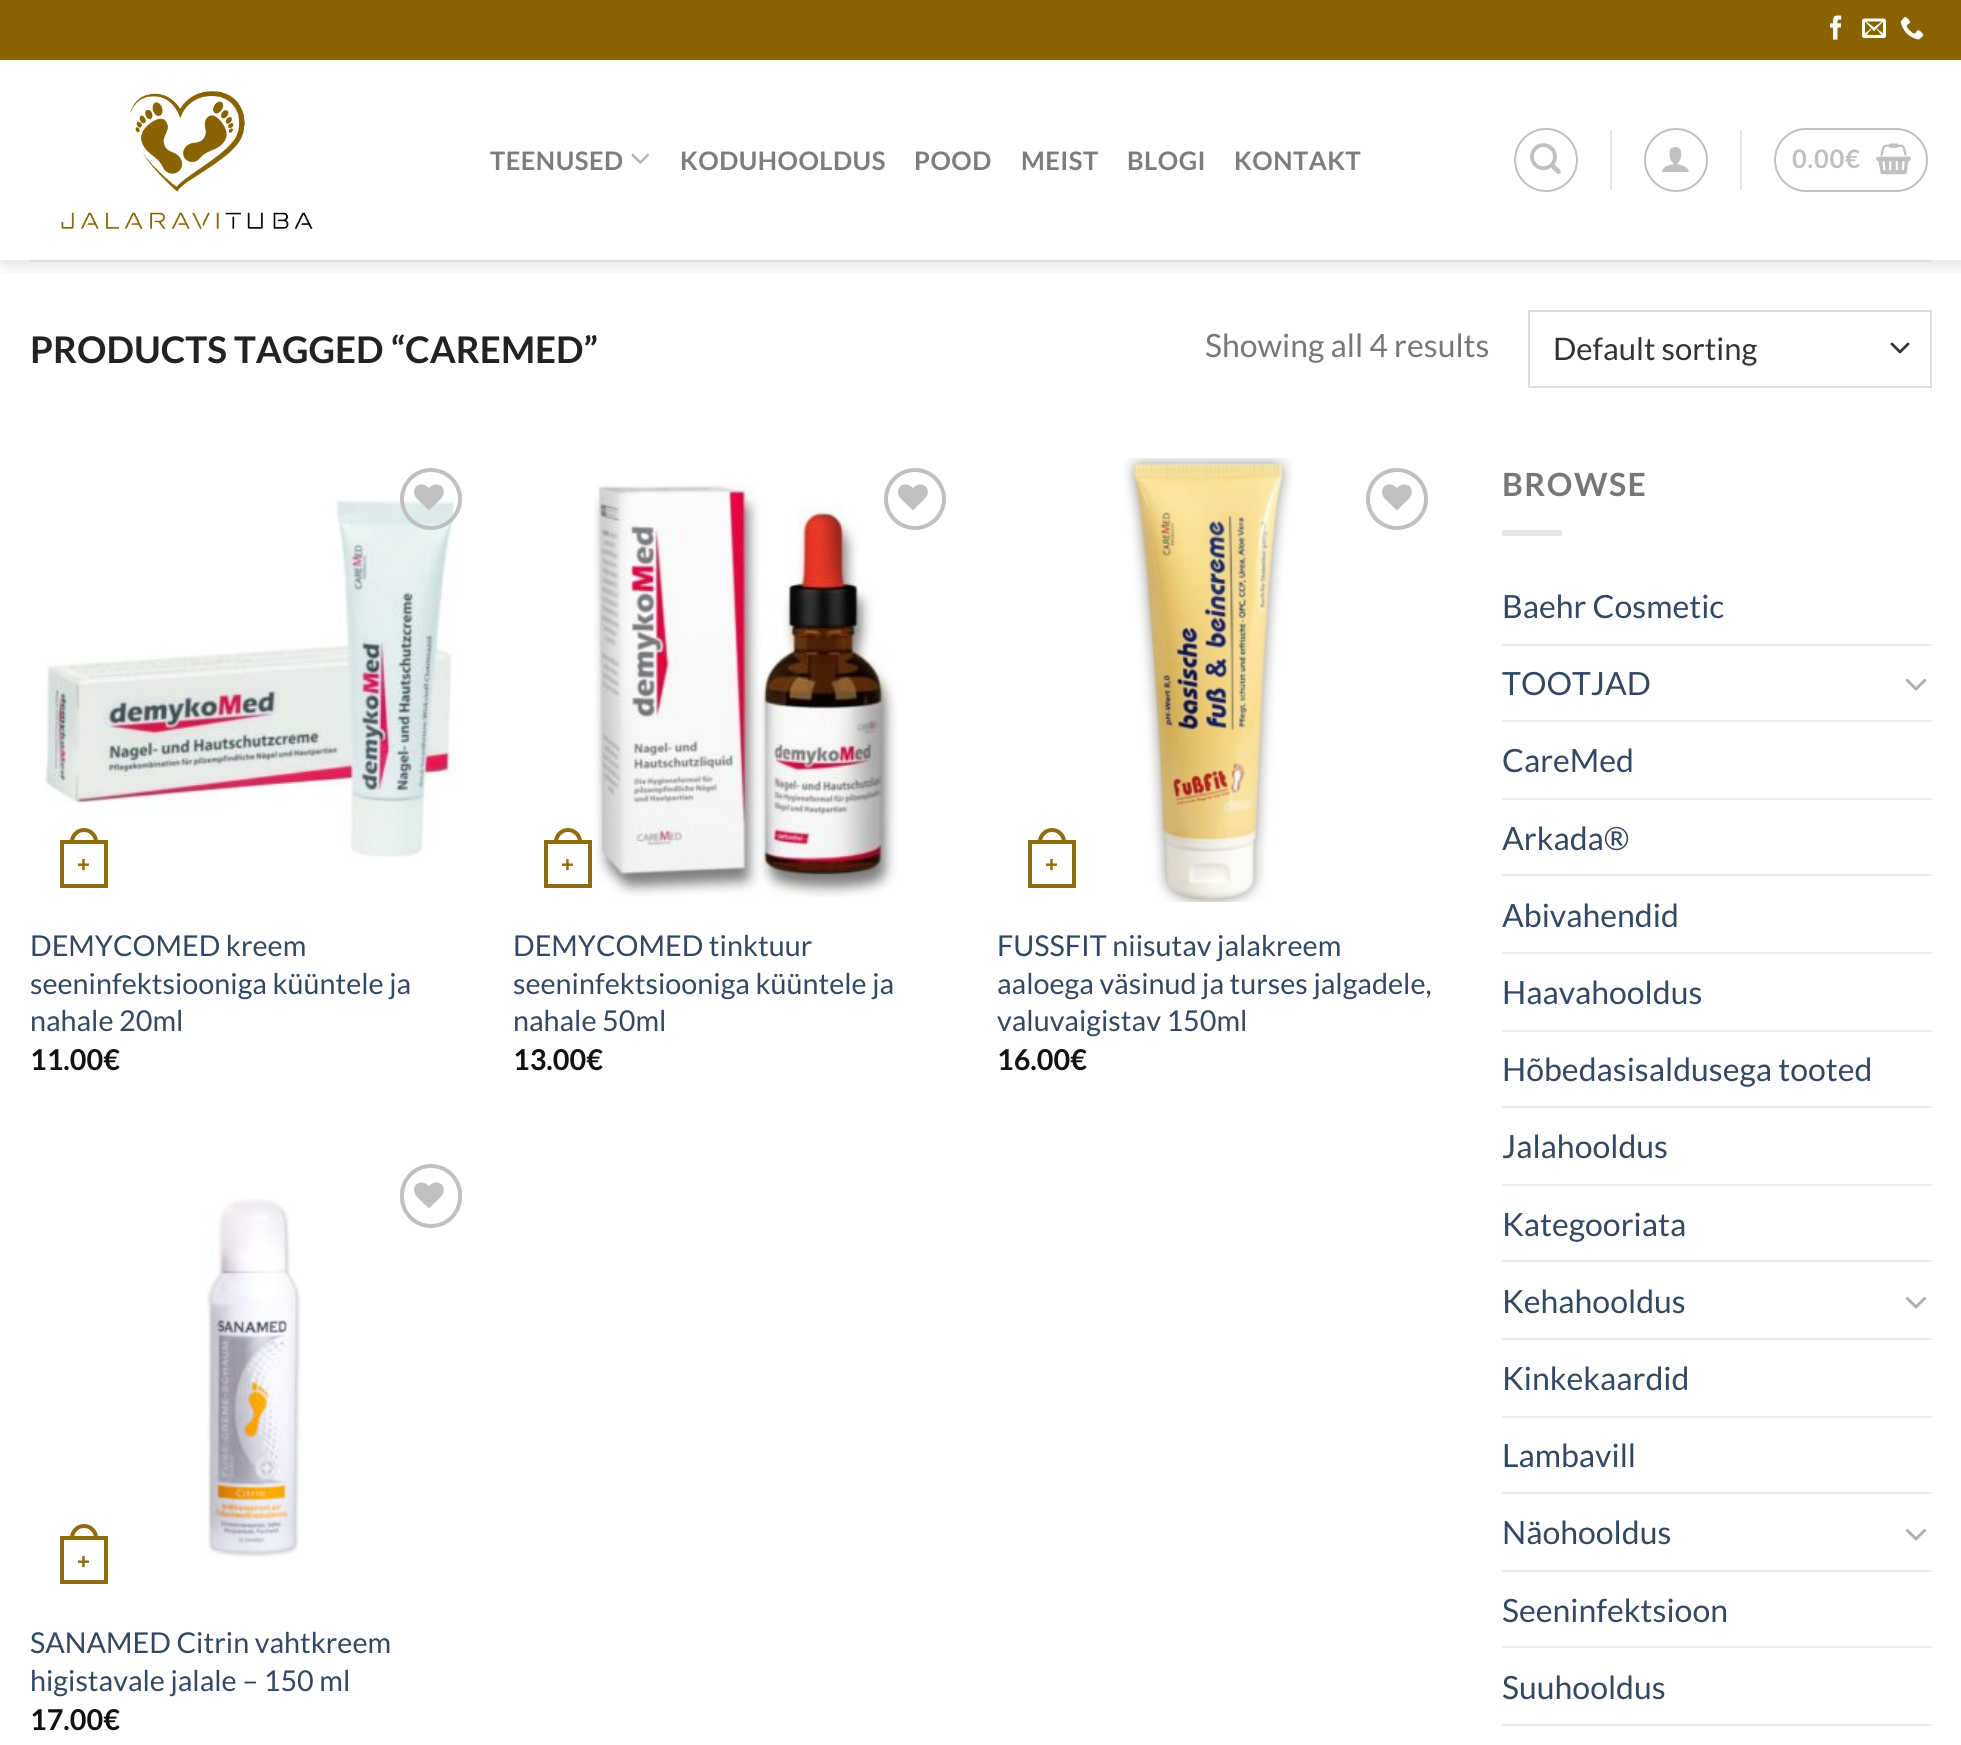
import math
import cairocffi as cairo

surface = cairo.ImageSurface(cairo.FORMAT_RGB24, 1961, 1745)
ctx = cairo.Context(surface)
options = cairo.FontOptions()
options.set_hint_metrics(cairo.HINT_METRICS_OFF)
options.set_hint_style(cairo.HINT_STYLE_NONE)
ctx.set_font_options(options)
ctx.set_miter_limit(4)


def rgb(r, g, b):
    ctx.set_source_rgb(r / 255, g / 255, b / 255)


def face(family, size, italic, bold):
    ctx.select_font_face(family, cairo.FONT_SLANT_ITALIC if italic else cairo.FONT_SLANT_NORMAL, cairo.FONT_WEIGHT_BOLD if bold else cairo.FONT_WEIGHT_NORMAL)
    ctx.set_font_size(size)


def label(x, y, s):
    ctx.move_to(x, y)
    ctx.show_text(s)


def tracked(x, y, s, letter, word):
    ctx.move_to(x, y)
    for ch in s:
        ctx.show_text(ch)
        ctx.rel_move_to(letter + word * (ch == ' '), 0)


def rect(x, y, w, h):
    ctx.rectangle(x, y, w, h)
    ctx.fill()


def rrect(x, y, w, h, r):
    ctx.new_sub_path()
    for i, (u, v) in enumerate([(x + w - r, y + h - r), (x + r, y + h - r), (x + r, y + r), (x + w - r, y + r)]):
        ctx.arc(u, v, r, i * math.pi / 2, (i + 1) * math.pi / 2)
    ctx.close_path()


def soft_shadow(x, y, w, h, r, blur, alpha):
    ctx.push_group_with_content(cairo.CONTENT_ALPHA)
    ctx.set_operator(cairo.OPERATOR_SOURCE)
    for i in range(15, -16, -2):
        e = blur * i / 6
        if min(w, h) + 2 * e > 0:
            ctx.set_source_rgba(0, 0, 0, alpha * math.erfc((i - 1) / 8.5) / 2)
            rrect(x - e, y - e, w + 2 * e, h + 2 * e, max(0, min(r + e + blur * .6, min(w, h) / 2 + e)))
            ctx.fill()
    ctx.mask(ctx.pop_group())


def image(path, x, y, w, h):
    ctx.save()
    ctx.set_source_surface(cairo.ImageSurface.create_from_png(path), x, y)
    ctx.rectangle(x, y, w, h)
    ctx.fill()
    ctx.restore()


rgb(255, 255, 255)
ctx.paint()
ctx.save()
ctx.rectangle(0, 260, 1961, 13)
ctx.clip()
rgb(0, 0, 0)
soft_shadow(2, 2, 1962, 260, 0, 10, 0.15)
ctx.restore()
rgb(137, 99, 0)
rect(0, 0, 1961, 60)
image('image0.png', 1830, 15, 12, 25)
image('image1.png', 1862, 18, 24, 20)
image('image2.png', 1900, 17, 24, 23)
image('image3.png', 61, 91, 252, 138)
face('Lato', 25.5, 0, 1)
rgb(125, 125, 125)
tracked(490, 170, 'TEENUSED', 0.5, 0)
image('image4.png', 631, 153, 19, 11)
tracked(680, 170, 'KODUHOOLDUS', 0.5, 0)
tracked(914, 170, 'POOD', 0.5, 0)
tracked(1021, 170, 'MEIST', 0.5, 0)
tracked(1127, 170, 'BLOGI', 0.5, 0)
tracked(1234, 170, 'KONTAKT', 0.5, 0)
ctx.new_path()
ctx.arc(1546, 160, 31, 0, 2 * math.pi)
rgb(192, 192, 192)
ctx.stroke()
image('image5.png', 1530, 143, 31, 31)
rgb(230, 230, 230)
rect(1610, 130, 2, 60)
ctx.arc(1676, 160, 31, 0, 2 * math.pi)
rgb(192, 192, 192)
ctx.stroke()
image('image6.png', 1662, 147, 27, 25)
rgb(230, 230, 230)
rect(1740, 130, 2, 60)
rrect(1775, 129, 152, 62, 31)
rgb(192, 192, 192)
ctx.stroke()
tracked(1792, 168, '0.00€', 0.75, 0)
image('image7.png', 1876, 143, 35, 32)
rgb(223, 223, 223)
rect(30, 260, 1902, 2)
face('Lato', 36.75, 0, 1)
rgb(34, 34, 34)
label(30, 363, 'PRODUCTS TAGGED “CAREMED”')
face('Lato', 32, 0, 0)
rgb(119, 119, 119)
label(1205, 357, 'Showing all 4 results')
ctx.new_path()
ctx.move_to(1892, 344)
ctx.line_to(1900, 352)
ctx.line_to(1908, 344)
rgb(51, 51, 51)
ctx.set_line_width(2.7)
ctx.set_line_cap(cairo.LINE_CAP_ROUND)
ctx.set_line_join(cairo.LINE_JOIN_ROUND)
ctx.stroke()
ctx.rectangle(1529, 311, 402, 76)
rgb(221, 221, 221)
ctx.set_line_width(2)
ctx.set_line_cap(cairo.LINE_CAP_BUTT)
ctx.set_line_join(cairo.LINE_JOIN_MITER)
ctx.stroke()
face('Lato', 31, 0, 0)
rgb(51, 51, 51)
label(1553, 360, 'Default sorting')
image('image9.png', 44, 499, 413, 359)
ctx.arc(431, 499, 29, 0, 2 * math.pi)
rgb(192, 192, 192)
ctx.set_line_width(4)
ctx.stroke()
image('image8.png', 414, 484, 30, 26)
ctx.rectangle(62, 842, 44, 44)
rgb(143, 107, 13)
ctx.stroke()
ctx.set_fill_rule(cairo.FILL_RULE_EVEN_ODD)
ctx.new_path()
ctx.move_to(84, 828)
ctx.curve_to(91.5, 828, 98, 834, 98, 842)
ctx.line_to(98, 844)
ctx.line_to(70, 844)
ctx.line_to(70, 842)
ctx.curve_to(70, 834, 76.5, 828, 84, 828)
ctx.close_path()
ctx.move_to(84, 832)
ctx.curve_to(89.5, 832, 94, 836.5, 94, 842)
ctx.line_to(94, 844)
ctx.line_to(74, 844)
ctx.line_to(74, 842)
ctx.curve_to(74, 836.5, 78.5, 832, 84, 832)
ctx.close_path()
ctx.fill()
face('Liberation Sans', 22, 0, 1)
label(77, 872, '+')
face('Lato', 28.75, 0, 0)
rgb(51, 72, 98)
label(30, 956, 'DEMYCOMED kreem')
label(30, 994, 'seeninfektsiooniga küüntele ja')
label(30, 1031, 'nahale 20ml')
face('Lato', 28.75, 0, 1)
rgb(17, 17, 17)
label(30, 1070, '11.00€')
ctx.rectangle(546, 842, 44, 44)
rgb(143, 107, 13)
ctx.stroke()
ctx.new_path()
ctx.move_to(568, 828)
ctx.curve_to(575.5, 828, 582, 834, 582, 842)
ctx.line_to(582, 844)
ctx.line_to(554, 844)
ctx.line_to(554, 842)
ctx.curve_to(554, 834, 560.5, 828, 568, 828)
ctx.close_path()
ctx.move_to(568, 832)
ctx.curve_to(573.5, 832, 578, 836.5, 578, 842)
ctx.line_to(578, 844)
ctx.line_to(558, 844)
ctx.line_to(558, 842)
ctx.curve_to(558, 836.5, 562.5, 832, 568, 832)
ctx.close_path()
ctx.fill()
face('Liberation Sans', 22, 0, 1)
label(561, 872, '+')
image('image10.png', 594, 482, 303, 415)
ctx.arc(915, 499, 29, 0, 2 * math.pi)
rgb(192, 192, 192)
ctx.stroke()
image('image11.png', 898, 484, 30, 26)
face('Lato', 28.75, 0, 0)
rgb(51, 72, 98)
label(513, 956, 'DEMYCOMED tinktuur')
label(513, 994, 'seeninfektsiooniga küüntele ja')
label(513, 1031, 'nahale 50ml')
face('Lato', 28.75, 0, 1)
rgb(17, 17, 17)
label(513, 1070, '13.00€')
image('image12.png', 1124, 458, 169, 444)
ctx.arc(1397, 499, 29, 0, 2 * math.pi)
rgb(192, 192, 192)
ctx.stroke()
image('image11.png', 1382, 484, 30, 26)
ctx.rectangle(1030, 842, 44, 44)
rgb(143, 107, 13)
ctx.stroke()
ctx.new_path()
ctx.move_to(1052, 828)
ctx.curve_to(1059.5, 828, 1066, 834, 1066, 842)
ctx.line_to(1066, 844)
ctx.line_to(1038, 844)
ctx.line_to(1038, 842)
ctx.curve_to(1038, 834, 1044.5, 828, 1052, 828)
ctx.close_path()
ctx.move_to(1052, 832)
ctx.curve_to(1057.5, 832, 1062, 836.5, 1062, 842)
ctx.line_to(1062, 844)
ctx.line_to(1042, 844)
ctx.line_to(1042, 842)
ctx.curve_to(1042, 836.5, 1046.5, 832, 1052, 832)
ctx.close_path()
ctx.fill()
face('Liberation Sans', 22, 0, 1)
label(1045, 872, '+')
face('Lato', 28.75, 0, 0)
rgb(51, 72, 98)
label(997, 956, 'FUSSFIT niisutav jalakreem')
label(997, 994, 'aaloega väsinud ja turses jalgadele,')
label(997, 1031, 'valuvaigistav 150ml')
face('Lato', 28.75, 0, 1)
rgb(17, 17, 17)
label(997, 1070, '16.00€')
image('image13.png', 206, 1199, 96, 359)
rrect(402, 1166, 58, 60, 29)
rgb(192, 192, 192)
ctx.stroke()
image('image11.png', 414, 1182, 30, 26)
ctx.rectangle(62, 1538, 44, 44)
rgb(143, 107, 13)
ctx.stroke()
ctx.new_path()
ctx.move_to(84, 1524)
ctx.curve_to(91.5, 1524, 98, 1530, 98, 1538)
ctx.line_to(98, 1540)
ctx.line_to(70, 1540)
ctx.line_to(70, 1538)
ctx.curve_to(70, 1530, 76.5, 1524, 84, 1524)
ctx.close_path()
ctx.move_to(84, 1528)
ctx.curve_to(89.5, 1528, 94, 1532.5, 94, 1538)
ctx.line_to(94, 1540)
ctx.line_to(74, 1540)
ctx.line_to(74, 1538)
ctx.curve_to(74, 1532.5, 78.5, 1528, 84, 1528)
ctx.close_path()
ctx.fill()
face('Liberation Sans', 22, 0, 1)
label(77, 1569, '+')
face('Lato', 28.75, 0, 0)
rgb(51, 72, 98)
label(30, 1653, 'SANAMED Citrin vahtkreem')
label(30, 1691, 'higistavale jalale – 150 ml')
face('Lato', 28.75, 0, 1)
rgb(17, 17, 17)
label(30, 1730, '17.00€')
face('Lato', 32, 0, 1)
rgb(119, 119, 119)
tracked(1502, 496, 'BROWSE', 1.5, 0)
rgb(230, 230, 230)
rect(1502, 530, 60, 6)
face('Lato', 32, 0, 0)
rgb(51, 72, 98)
label(1502, 618, 'Baehr Cosmetic')
rgb(236, 236, 236)
rect(1502, 644, 430, 2)
rgb(51, 72, 98)
label(1502, 695, 'TOOTJAD')
image('image14.png', 1905, 678, 22, 13)
rgb(236, 236, 236)
rect(1502, 720, 430, 2)
rgb(51, 72, 98)
label(1502, 772, 'CareMed')
rgb(236, 236, 236)
rect(1502, 798, 430, 2)
rgb(51, 72, 98)
label(1502, 850, 'Arkada®')
rgb(236, 236, 236)
rect(1502, 874, 430, 2)
rgb(51, 72, 98)
label(1502, 927, 'Abivahendid')
rgb(236, 236, 236)
rect(1502, 952, 430, 2)
rgb(51, 72, 98)
label(1502, 1004, 'Haavahooldus')
rgb(236, 236, 236)
rect(1502, 1030, 430, 2)
rgb(51, 72, 98)
label(1502, 1081, 'Hõbedasisaldusega tooted')
rgb(236, 236, 236)
rect(1502, 1106, 430, 2)
rgb(51, 72, 98)
label(1502, 1158, 'Jalahooldus')
rgb(236, 236, 236)
rect(1502, 1184, 430, 2)
rgb(51, 72, 98)
label(1502, 1236, 'Kategooriata')
rgb(236, 236, 236)
rect(1502, 1260, 430, 2)
rgb(51, 72, 98)
label(1502, 1313, 'Kehahooldus')
image('image14.png', 1905, 1296, 22, 13)
rgb(236, 236, 236)
rect(1502, 1338, 430, 2)
rgb(51, 72, 98)
label(1502, 1390, 'Kinkekaardid')
rgb(236, 236, 236)
rect(1502, 1416, 430, 2)
rgb(51, 72, 98)
label(1502, 1467, 'Lambavill')
rgb(236, 236, 236)
rect(1502, 1492, 430, 2)
rgb(51, 72, 98)
label(1502, 1544, 'Näohooldus')
image('image14.png', 1905, 1528, 22, 13)
rgb(236, 236, 236)
rect(1502, 1570, 430, 2)
rgb(51, 72, 98)
label(1502, 1622, 'Seeninfektsioon')
rgb(236, 236, 236)
rect(1502, 1646, 430, 2)
rgb(51, 72, 98)
label(1502, 1699, 'Suuhooldus')
rgb(236, 236, 236)
rect(1502, 1724, 430, 2)
surface.write_to_png('render.png')
